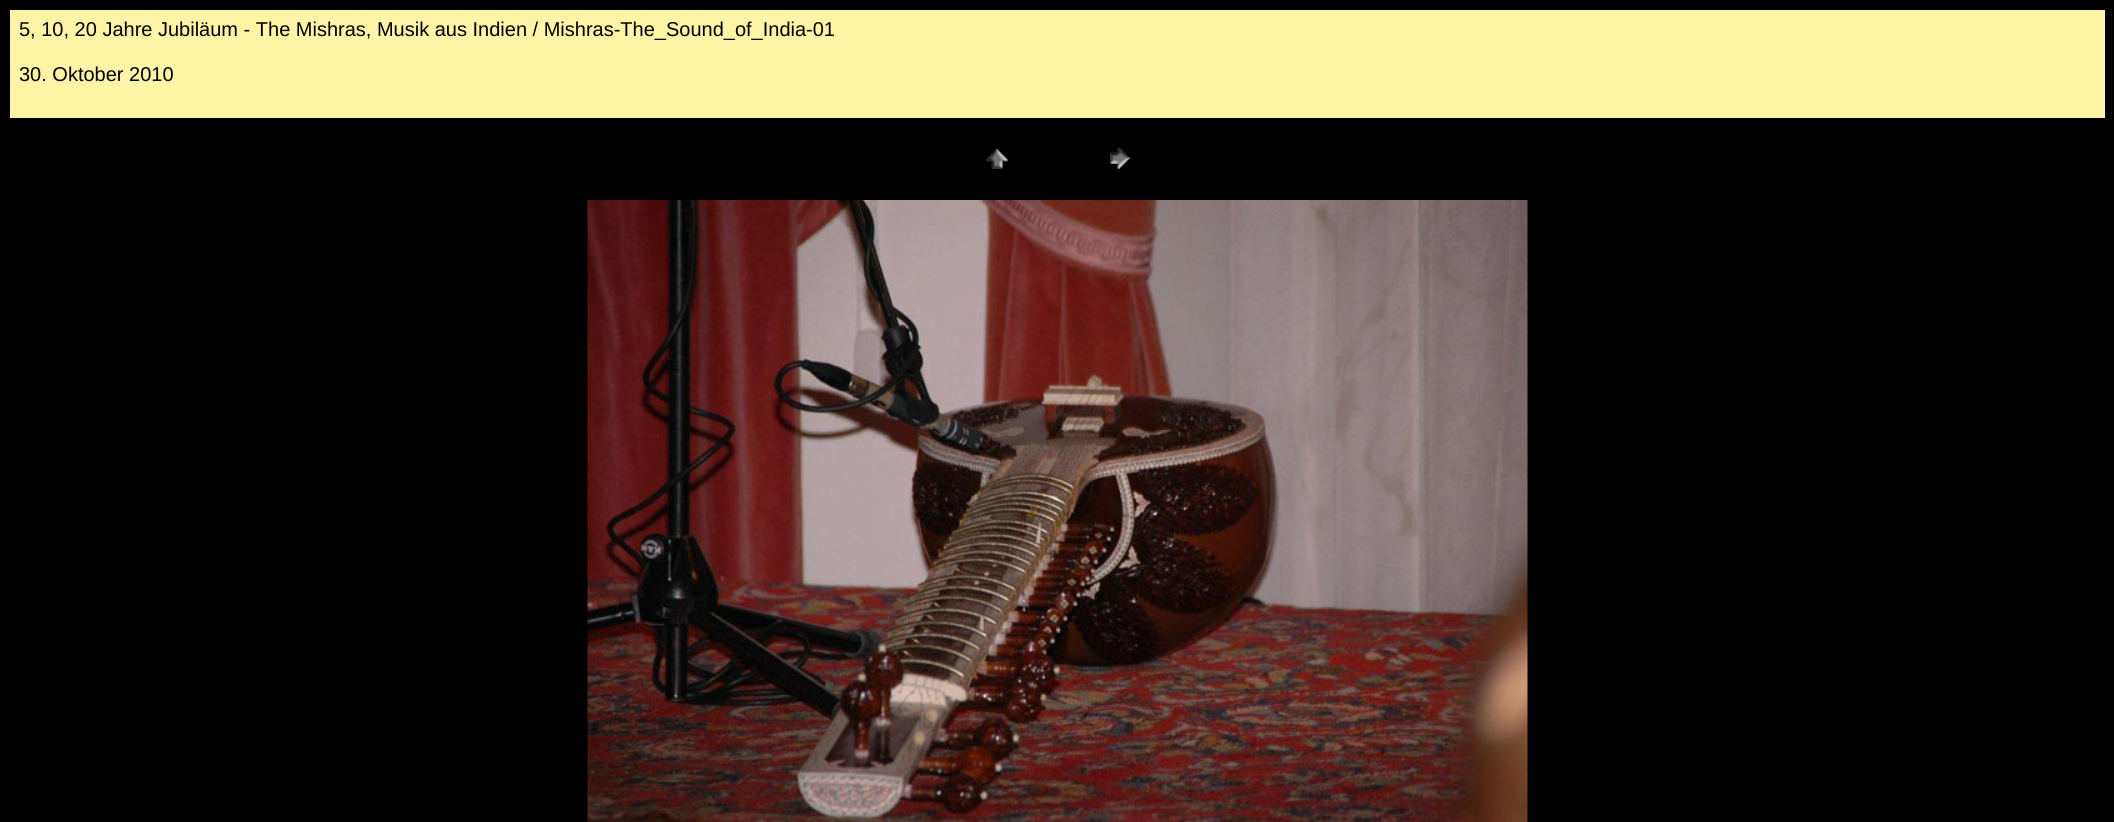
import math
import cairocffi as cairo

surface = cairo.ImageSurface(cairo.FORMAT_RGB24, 2114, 822)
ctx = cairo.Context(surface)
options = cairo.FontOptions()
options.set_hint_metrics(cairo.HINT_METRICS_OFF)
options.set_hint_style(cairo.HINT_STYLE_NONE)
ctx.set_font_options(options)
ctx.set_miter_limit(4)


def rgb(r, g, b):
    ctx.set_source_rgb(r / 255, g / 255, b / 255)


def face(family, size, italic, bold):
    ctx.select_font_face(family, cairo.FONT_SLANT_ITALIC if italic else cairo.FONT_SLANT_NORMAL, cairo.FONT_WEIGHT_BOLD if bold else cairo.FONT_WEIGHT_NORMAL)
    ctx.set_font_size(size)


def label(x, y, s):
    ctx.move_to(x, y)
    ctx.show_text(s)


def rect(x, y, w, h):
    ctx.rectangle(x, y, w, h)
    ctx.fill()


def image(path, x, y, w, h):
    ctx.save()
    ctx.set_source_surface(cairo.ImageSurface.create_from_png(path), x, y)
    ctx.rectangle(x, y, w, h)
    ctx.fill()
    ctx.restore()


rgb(0, 0, 0)
ctx.paint()
rgb(255, 243, 165)
rect(10, 10, 2095, 108)
face('Liberation Sans', 20, 0, 0)
rgb(0, 0, 0)
label(19, 36, '5, 10, 20 Jahre Jubiläum - The Mishras, Musik aus Indien / Mishras-The_Sound_of_India-01')
label(19, 81, '30. Oktober 2010')
image('image0.png', 986, 148, 22, 21)
image('image1.png', 1110, 147, 21, 22)
image('image2.png', 587, 200, 941, 622)
surface.write_to_png('render.png')
